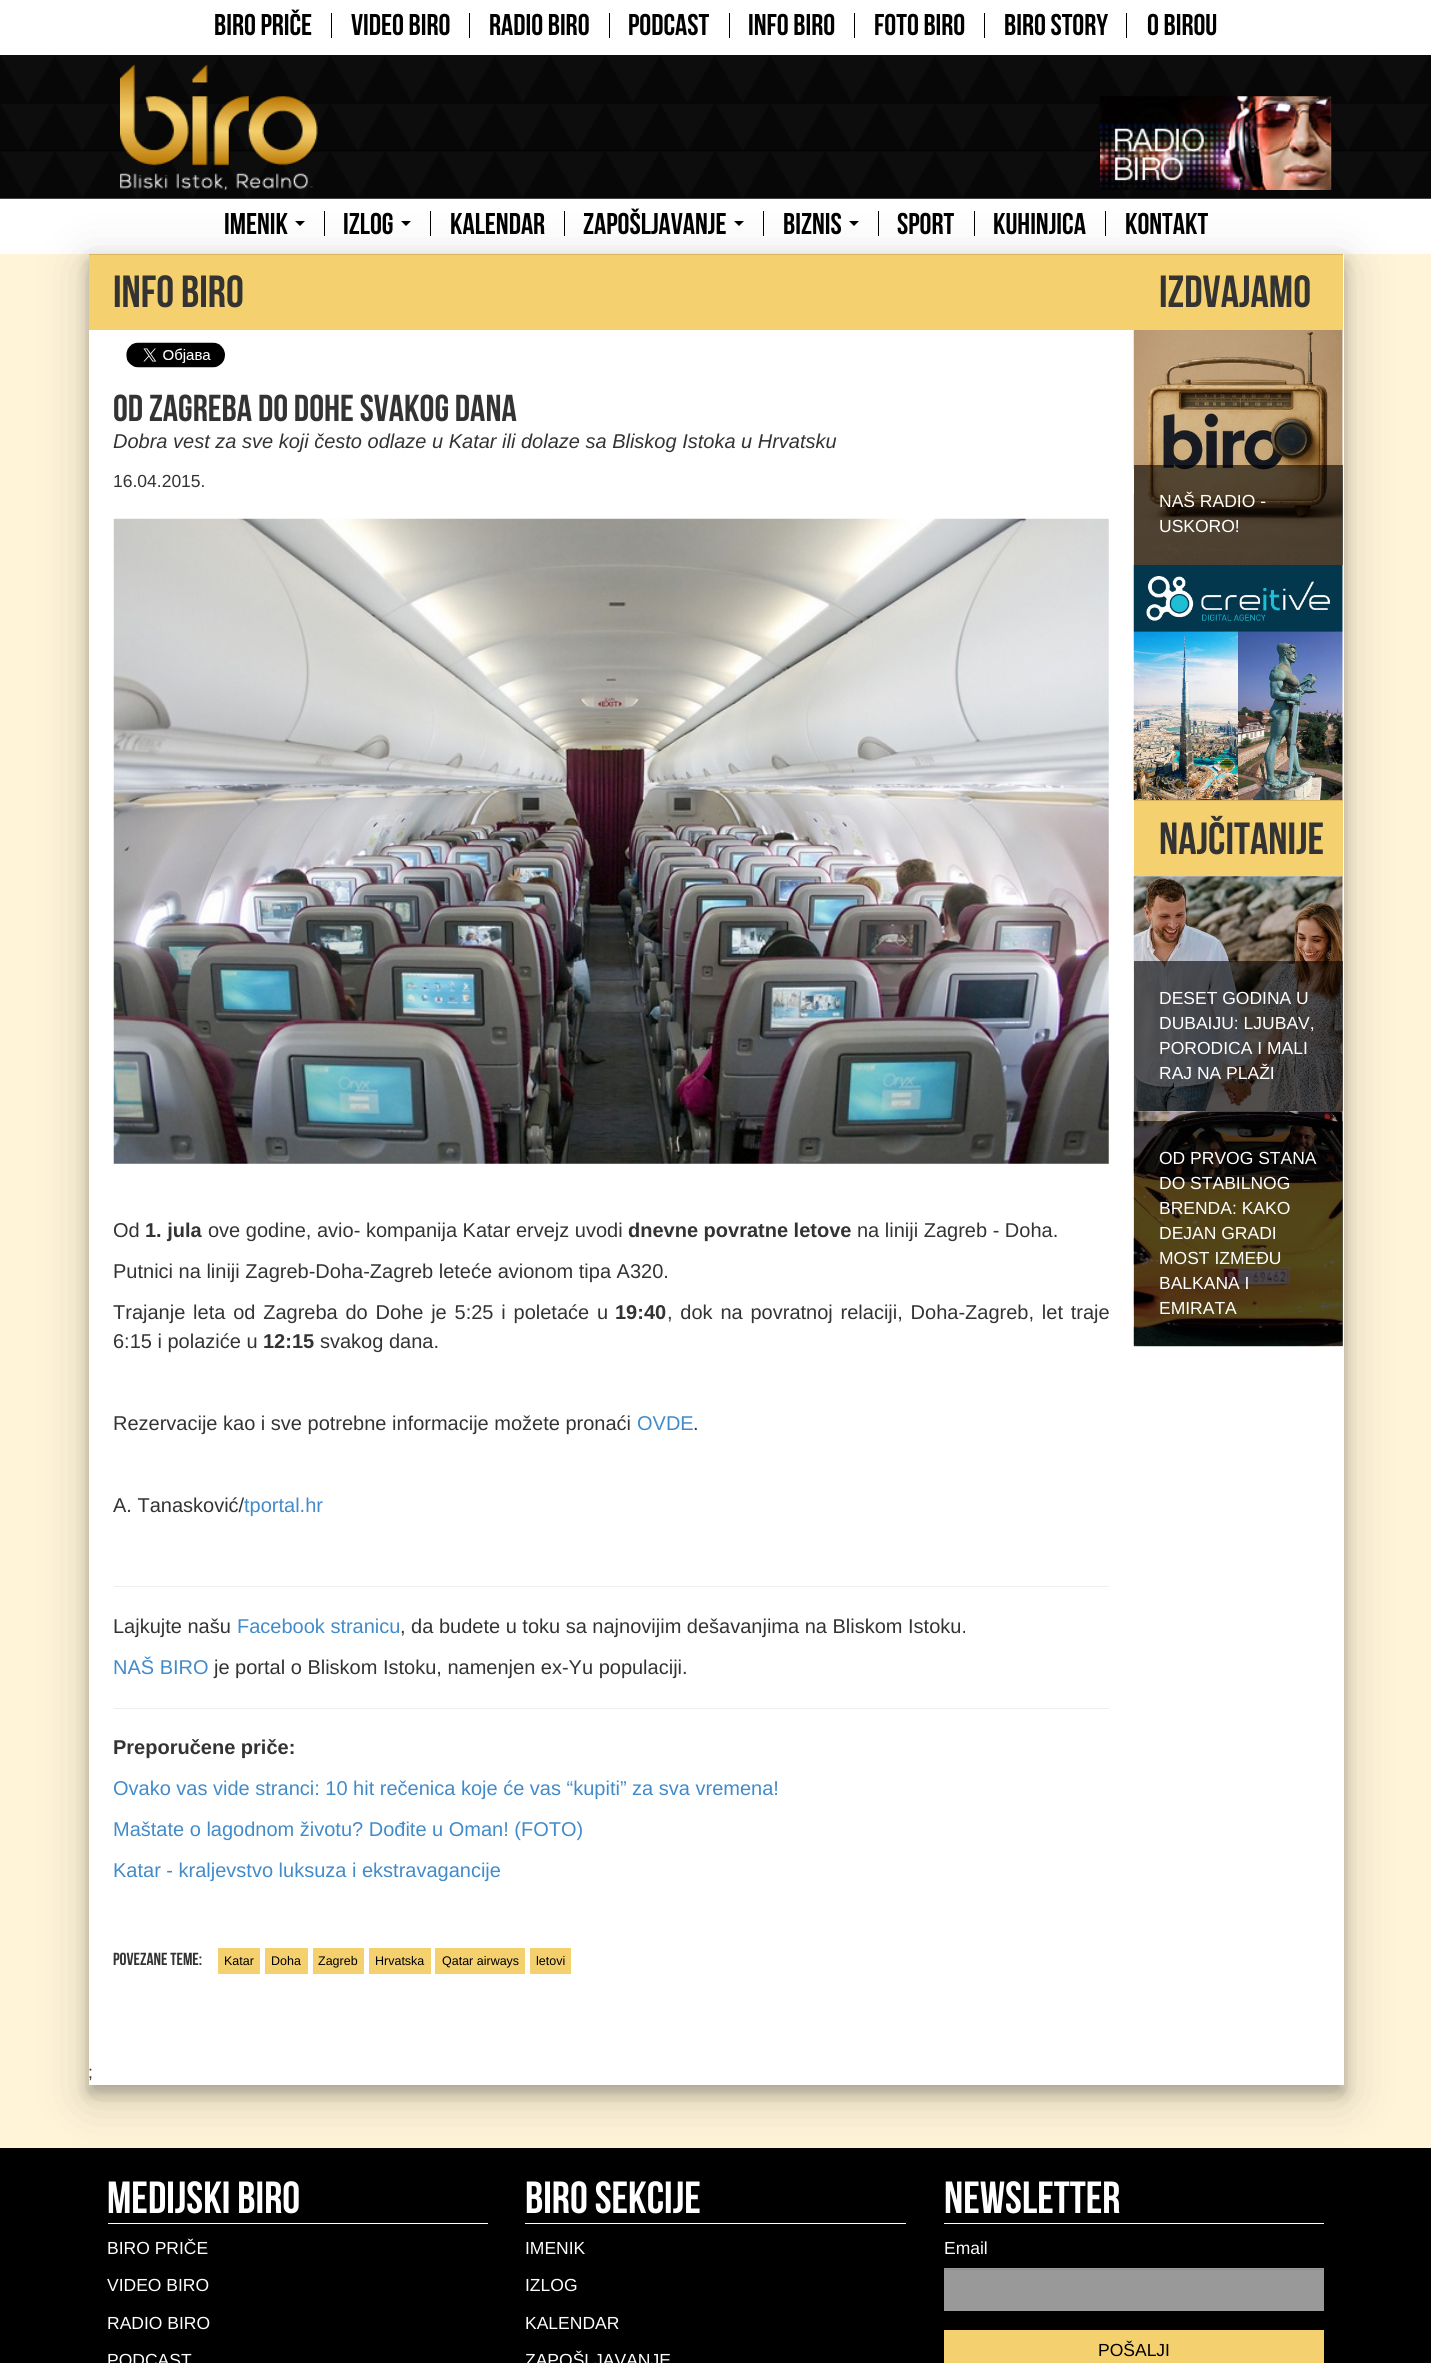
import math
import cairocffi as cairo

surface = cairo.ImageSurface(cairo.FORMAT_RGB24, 1431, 2363)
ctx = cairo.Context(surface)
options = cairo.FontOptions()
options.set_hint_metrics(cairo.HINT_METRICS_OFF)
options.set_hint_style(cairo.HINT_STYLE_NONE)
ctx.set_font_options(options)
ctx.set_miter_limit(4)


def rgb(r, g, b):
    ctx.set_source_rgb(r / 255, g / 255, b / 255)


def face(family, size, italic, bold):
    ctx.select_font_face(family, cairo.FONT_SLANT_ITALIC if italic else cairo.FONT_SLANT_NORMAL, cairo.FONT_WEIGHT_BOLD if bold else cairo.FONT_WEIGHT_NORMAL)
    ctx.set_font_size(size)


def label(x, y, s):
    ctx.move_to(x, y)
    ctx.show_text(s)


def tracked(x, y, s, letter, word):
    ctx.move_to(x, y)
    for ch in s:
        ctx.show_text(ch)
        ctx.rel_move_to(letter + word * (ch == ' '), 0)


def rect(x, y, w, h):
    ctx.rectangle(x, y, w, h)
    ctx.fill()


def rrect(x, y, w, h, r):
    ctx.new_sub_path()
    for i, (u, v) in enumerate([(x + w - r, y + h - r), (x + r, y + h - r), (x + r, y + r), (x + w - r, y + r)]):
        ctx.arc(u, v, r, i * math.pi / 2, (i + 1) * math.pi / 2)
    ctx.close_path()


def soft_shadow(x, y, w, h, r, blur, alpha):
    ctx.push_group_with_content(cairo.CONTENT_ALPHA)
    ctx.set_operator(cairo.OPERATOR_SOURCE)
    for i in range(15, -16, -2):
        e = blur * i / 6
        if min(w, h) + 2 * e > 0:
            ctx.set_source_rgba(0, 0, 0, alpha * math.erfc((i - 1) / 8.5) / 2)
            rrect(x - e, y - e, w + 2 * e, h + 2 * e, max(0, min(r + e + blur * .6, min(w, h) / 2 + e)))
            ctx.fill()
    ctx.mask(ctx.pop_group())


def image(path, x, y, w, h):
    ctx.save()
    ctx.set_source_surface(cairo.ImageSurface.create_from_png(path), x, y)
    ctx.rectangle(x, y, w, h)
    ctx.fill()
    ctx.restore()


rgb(255, 244, 216)
ctx.paint()
rgb(255, 255, 255)
rect(0, 0, 1431, 254)
rgb(0, 0, 0)
rect(331, 13, 1, 25)
face('Bebas Neue', 30, 0, 0)
label(214, 35, 'BIRO PRIČE')
rect(469, 13, 1, 25)
label(351, 35, 'VIDEO BIRO')
rect(609, 13, 1, 25)
label(489, 35, 'RADIO BIRO')
rect(729, 13, 1, 25)
label(628, 35, 'PODCAST')
rect(854, 13, 1, 25)
label(748, 35, 'INFO BIRO')
rect(984, 13, 1, 25)
label(874, 35, 'FOTO BIRO')
rect(1126, 13, 1, 25)
label(1004, 35, 'BIRO STORY')
label(1147, 35, 'O BIROU')
image('image0.png', 0, 55, 1431, 144)
image('image1.png', 120, 64, 198, 126)
image('image2.png', 1100, 96, 232, 94)
rect(324, 211, 1, 25)
label(224, 234, 'IMENIK')
ctx.new_path()
ctx.move_to(295, 221)
ctx.line_to(305, 221)
ctx.line_to(300, 226)
ctx.close_path()
ctx.fill()
rect(430, 211, 1, 25)
label(343, 234, 'IZLOG')
ctx.new_path()
ctx.move_to(401, 221)
ctx.line_to(411, 221)
ctx.line_to(406, 226)
ctx.close_path()
ctx.fill()
rect(564, 211, 1, 25)
label(450, 234, 'KALENDAR')
rect(763, 211, 1, 25)
label(583, 234, 'ZAPOŠLJAVANJE')
ctx.new_path()
ctx.move_to(734, 221)
ctx.line_to(744, 221)
ctx.line_to(739, 226)
ctx.close_path()
ctx.fill()
rect(878, 211, 1, 25)
label(783, 234, 'BIZNIS')
ctx.new_path()
ctx.move_to(849, 221)
ctx.line_to(859, 221)
ctx.line_to(854, 226)
ctx.close_path()
ctx.fill()
rect(974, 211, 1, 25)
label(897, 234, 'SPORT')
rect(1105, 211, 1, 25)
label(993, 234, 'KUHINJICA')
label(1125, 234, 'KONTAKT')
rgb(255, 255, 255)
rect(89, 254, 1255, 1831)
rgb(102, 102, 102)
rect(1342, 1121, 1, 225)
rgb(0, 0, 0)
rect(0, 2148, 1431, 215)
ctx.save()
ctx.set_fill_rule(cairo.FILL_RULE_EVEN_ODD)
ctx.new_path()
ctx.move_to(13, 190)
ctx.line_to(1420, 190)
ctx.line_to(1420, 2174)
ctx.line_to(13, 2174)
ctx.close_path()
ctx.move_to(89, 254)
ctx.line_to(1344, 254)
ctx.line_to(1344, 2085)
ctx.line_to(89, 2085)
ctx.close_path()
ctx.clip()
rgb(0, 0, 0)
soft_shadow(89, 266, 1255, 1832, 0, 25, 0.19)
ctx.restore()
ctx.save()
ctx.set_fill_rule(cairo.FILL_RULE_EVEN_ODD)
ctx.new_path()
ctx.move_to(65, 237)
ctx.line_to(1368, 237)
ctx.line_to(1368, 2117)
ctx.line_to(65, 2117)
ctx.close_path()
ctx.move_to(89, 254)
ctx.line_to(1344, 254)
ctx.line_to(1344, 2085)
ctx.line_to(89, 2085)
ctx.close_path()
ctx.clip()
rgb(0, 0, 0)
soft_shadow(89, 261, 1255, 1832, 0, 7.5, 0.23)
ctx.restore()
rgb(245, 208, 111)
rect(89, 255, 1254, 75)
rgb(216, 179, 96)
rect(89, 254, 1254, 1)
face('Bebas Neue', 45, 0, 0)
rgb(51, 51, 51)
label(113, 307, 'INFO BIRO')
image('image3.png', 126, 342, 99, 26)
face('Bebas Neue', 37.5, 0, 0)
label(113, 421, 'Od Zagreba do Dohe svakog dana')
face('Liberation Sans', 20, 1, 0)
label(113, 448, 'Dobra vest za sve koji često odlaze u Katar ili dolaze sa Bliskog Istoka u Hrvatsku')
image('image5.png', 1133, 330, 210, 235)
rgb(255, 255, 255)
rect(1133, 469, 1, 25)
face('Liberation Sans', 17.5, 0, 0)
rgb(51, 51, 51)
label(113, 487, '16.04.2015.')
image('image4.png', 113, 518, 996, 646)
face('Liberation Sans', 20, 0, 0)
label(113, 1237, 'Od')
face('Liberation Sans', 20, 0, 1)
label(145, 1237, '1. jula')
face('Liberation Sans', 20, 0, 0)
label(208, 1237, 'ove godine, avio- kompanija Katar ervejz uvodi')
face('Liberation Sans', 20, 0, 1)
label(628, 1237, 'dnevne povratne letove')
face('Liberation Sans', 20, 0, 0)
label(857, 1237, 'na liniji Zagreb - Doha.')
label(113, 1278, 'Putnici na liniji Zagreb-Doha-Zagreb leteće avionom tipa A320.')
tracked(113, 1319, 'Trajanje leta od Zagreba do Dohe je 5:25 i poletaće u', 0, 2.25)
face('Liberation Sans', 20, 0, 1)
label(615, 1319, '19:40')
face('Liberation Sans', 20, 0, 0)
tracked(667, 1319, ', dok na povratnoj relaciji, Doha-Zagreb, let traje', 0, 2.25)
label(113, 1348, '6:15 i polaziće u')
face('Liberation Sans', 20, 0, 1)
label(263, 1348, '12:15')
face('Liberation Sans', 20, 0, 0)
label(320, 1348, 'svakog dana.')
label(113, 1430, 'Rezervacije kao i sve potrebne informacije možete pronaći')
rgb(66, 139, 202)
label(637, 1430, 'OVDE')
rgb(51, 51, 51)
label(693, 1430, '.')
label(113, 1512, 'A. Tanasković/')
rgb(66, 139, 202)
label(244, 1512, 'tportal.hr')
rgb(238, 238, 238)
rect(114, 1586, 995, 1)
rgb(51, 51, 51)
label(113, 1633, 'Lajkujte našu')
rgb(66, 139, 202)
label(237, 1633, 'Facebook stranicu')
rgb(51, 51, 51)
label(400, 1633, ', da budete u toku sa najnovijim dešavanjima na Bliskom Istoku.')
rgb(66, 139, 202)
label(113, 1674, 'NAŠ BIRO')
rgb(51, 51, 51)
label(214, 1674, 'je portal o Bliskom Istoku, namenjen ex-Yu populaciji.')
rgb(238, 238, 238)
rect(114, 1708, 995, 1)
face('Liberation Sans', 20, 0, 1)
rgb(51, 51, 51)
label(113, 1754, 'Preporučene priče:')
face('Liberation Sans', 20, 0, 0)
rgb(66, 139, 202)
label(113, 1795, 'Ovako vas vide stranci: 10 hit rečenica koje će vas “kupiti” za sva vremena!')
label(113, 1836, 'Maštate o lagodnom životu? Dođite u Oman! (FOTO)')
label(113, 1877, 'Katar - kraljevstvo luksuza i ekstravagancije')
face('Bebas Neue', 17.5, 0, 0)
rgb(51, 51, 51)
label(113, 1965, 'Povezane teme:')
rgb(245, 208, 111)
rect(218, 1948, 42, 26)
face('Liberation Sans', 12.5, 0, 0)
rgb(0, 0, 0)
label(224, 1965, 'Katar')
rgb(245, 208, 111)
rect(265, 1948, 43, 26)
rgb(0, 0, 0)
label(271, 1965, 'Doha')
rgb(245, 208, 111)
rect(313, 1948, 51, 26)
rgb(0, 0, 0)
label(318, 1965, 'Zagreb')
rgb(245, 208, 111)
rect(369, 1948, 62, 26)
rgb(0, 0, 0)
label(375, 1965, 'Hrvatska')
rgb(245, 208, 111)
rect(435, 1948, 90, 26)
rgb(0, 0, 0)
label(442, 1965, 'Qatar airways')
rgb(245, 208, 111)
rect(530, 1948, 41, 26)
rgb(0, 0, 0)
label(536, 1965, 'letovi')
face('Liberation Sans', 17.5, 0, 0)
rgb(51, 51, 51)
label(88, 2078, ';')
face('Bebas Neue', 45, 0, 0)
label(1159, 307, 'Izdvajamo')
ctx.set_source_rgba(0, 0, 0, 0.6)
rect(1134, 465, 209, 100)
face('Liberation Sans', 17.5, 0, 0)
rgb(255, 255, 255)
label(1159, 507, 'NAŠ RADIO -')
label(1159, 532, 'USKORO!')
image('image6.png', 1133, 565, 210, 235)
rgb(245, 208, 111)
rect(1134, 801, 209, 75)
rgb(216, 179, 96)
rect(1134, 800, 209, 1)
face('Bebas Neue', 45, 0, 0)
rgb(51, 51, 51)
label(1159, 854, 'Najčitanije')
image('image7.png', 1133, 876, 210, 236)
ctx.set_source_rgba(0, 0, 0, 0.6)
rect(1134, 961, 209, 150)
face('Liberation Sans', 17.5, 0, 0)
rgb(255, 255, 255)
label(1159, 1004, 'DESET GODINA U')
label(1159, 1029, 'DUBAIJU: LJUBAV,')
label(1159, 1054, 'PORODICA I MALI')
label(1159, 1079, 'RAJ NA PLAŽI')
image('image8.png', 1133, 1111, 210, 236)
label(1159, 1164, 'OD PRVOG STANA')
label(1159, 1189, 'DO STABILNOG')
label(1159, 1214, 'BRENDA: KAKO')
label(1159, 1239, 'DEJAN GRADI')
label(1159, 1264, 'MOST IZMEĐU')
label(1159, 1289, 'BALKANA I')
label(1159, 1314, 'EMIRATA')
rect(108, 2223, 380, 1)
face('Bebas Neue', 45, 0, 0)
label(107, 2213, 'Medijski biro')
face('Liberation Sans', 17.5, 0, 0)
label(107, 2254, 'BIRO PRIČE')
label(107, 2291, 'VIDEO BIRO')
label(107, 2329, 'RADIO BIRO')
label(107, 2366, 'PODCAST')
rect(525, 2223, 381, 1)
face('Bebas Neue', 45, 0, 0)
label(525, 2213, 'Biro sekcije')
face('Liberation Sans', 17.5, 0, 0)
label(525, 2254, 'IMENIK')
label(525, 2291, 'IZLOG')
label(525, 2329, 'KALENDAR')
label(525, 2366, 'ZAPOŠLJAVANJE')
rect(944, 2223, 380, 1)
face('Bebas Neue', 45, 0, 0)
label(944, 2213, 'Newsletter')
face('Liberation Sans', 17.5, 0, 0)
label(944, 2254, 'Email')
rgb(153, 153, 153)
rect(944, 2268, 380, 43)
rgb(142, 142, 142)
rect(945, 2269, 378, 1)
rgb(245, 208, 111)
rect(944, 2330, 380, 33)
rgb(0, 0, 0)
label(1098, 2356, 'POŠALJI')
surface.write_to_png('render.png')
